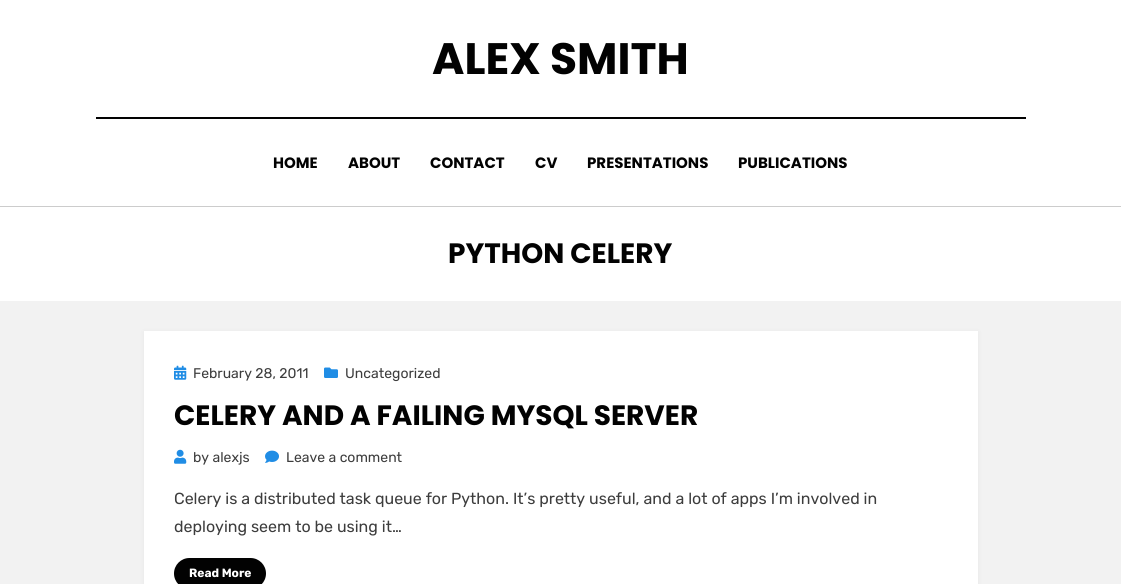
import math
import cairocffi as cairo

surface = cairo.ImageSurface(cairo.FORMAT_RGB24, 1121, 584)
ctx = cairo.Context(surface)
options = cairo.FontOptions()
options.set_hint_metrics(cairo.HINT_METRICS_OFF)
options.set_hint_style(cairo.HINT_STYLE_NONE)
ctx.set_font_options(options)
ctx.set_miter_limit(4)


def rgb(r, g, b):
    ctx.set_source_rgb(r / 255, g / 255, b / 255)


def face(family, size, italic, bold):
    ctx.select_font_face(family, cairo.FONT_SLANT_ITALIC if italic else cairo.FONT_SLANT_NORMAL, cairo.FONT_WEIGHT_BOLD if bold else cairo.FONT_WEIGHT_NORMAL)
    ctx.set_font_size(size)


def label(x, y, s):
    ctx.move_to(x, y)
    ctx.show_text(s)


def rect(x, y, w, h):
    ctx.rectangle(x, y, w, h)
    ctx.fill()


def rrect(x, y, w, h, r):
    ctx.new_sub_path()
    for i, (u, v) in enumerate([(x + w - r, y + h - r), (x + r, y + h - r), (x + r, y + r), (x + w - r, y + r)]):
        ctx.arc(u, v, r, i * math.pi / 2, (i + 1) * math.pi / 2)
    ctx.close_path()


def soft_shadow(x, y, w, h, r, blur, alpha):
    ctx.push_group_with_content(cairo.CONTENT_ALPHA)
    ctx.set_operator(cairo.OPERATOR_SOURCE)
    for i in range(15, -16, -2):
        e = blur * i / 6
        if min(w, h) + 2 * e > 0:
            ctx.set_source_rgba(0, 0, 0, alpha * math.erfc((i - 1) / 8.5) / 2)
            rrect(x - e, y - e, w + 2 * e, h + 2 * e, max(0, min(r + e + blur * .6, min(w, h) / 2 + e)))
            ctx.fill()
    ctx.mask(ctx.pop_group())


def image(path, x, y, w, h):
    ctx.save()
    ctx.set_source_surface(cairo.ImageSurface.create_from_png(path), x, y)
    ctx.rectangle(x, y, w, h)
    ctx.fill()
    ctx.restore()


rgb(242, 242, 242)
ctx.paint()
rgb(255, 255, 255)
rect(0, 0, 1121, 206)
face('Poppins', 44, 0, 1)
rgb(2, 2, 2)
label(432, 74, 'ALEX SMITH')
rect(96, 117, 930, 2)
face('Poppins', 15, 0, 1)
label(273, 168, 'HOME')
label(348, 168, 'ABOUT')
label(430, 168, 'CONTACT')
label(535, 168, 'CV')
label(587, 168, 'PRESENTATIONS')
label(738, 168, 'PUBLICATIONS')
rgb(255, 255, 255)
rect(0, 207, 1121, 94)
rgb(204, 204, 204)
rect(0, 206, 1121, 1)
face('Poppins', 28, 0, 1)
rgb(2, 2, 2)
label(448, 263, 'PYTHON CELERY')
rgb(0, 0, 1)
soft_shadow(144, 332, 834, 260, 0, 2.5, 0.05)
rgb(255, 255, 255)
rect(144, 331, 834, 253)
image('image0.png', 174, 365, 13, 15)
face('Rubik', 14, 0, 0)
rgb(61, 61, 61)
label(193, 378, 'February 28, 2011')
image('image1.png', 324, 367, 14, 11)
label(345, 378, 'Uncategorized')
face('Poppins', 28, 0, 1)
rgb(2, 2, 2)
label(174, 425, 'CELERY AND A FAILING MYSQL SERVER')
image('image2.png', 174, 449, 13, 15)
face('Rubik', 14, 0, 0)
rgb(61, 61, 61)
label(193, 462, 'by alexjs')
image('image3.png', 265, 450, 14, 13)
label(286, 462, 'Leave a comment')
face('Rubik', 16, 0, 0)
label(174, 504, 'Celery is a distributed task queue for Python. It’s pretty useful, and a lot of apps I’m involved in')
label(174, 532, 'deploying seem to be using it…')
rgb(2, 2, 2)
rrect(174, 558, 92, 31, 15.5)
ctx.fill()
face('Rubik', 12, 0, 1)
rgb(255, 255, 255)
label(189, 577, 'Read More')
surface.write_to_png('render.png')
